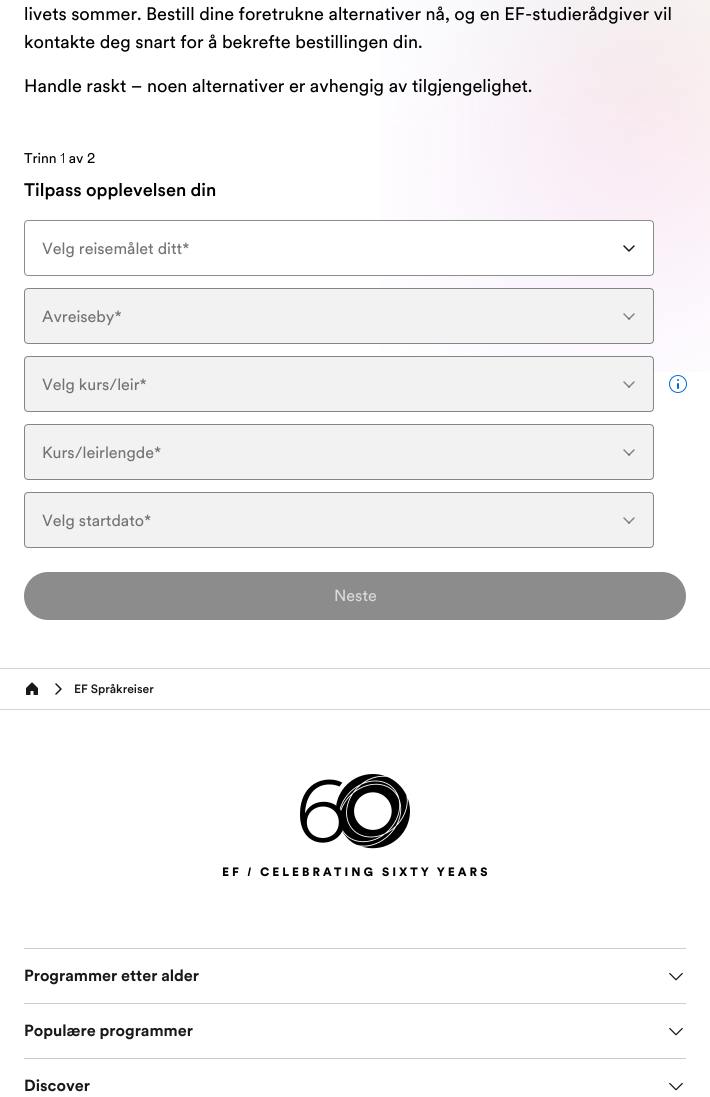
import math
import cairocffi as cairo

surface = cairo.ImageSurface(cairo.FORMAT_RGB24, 710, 1097)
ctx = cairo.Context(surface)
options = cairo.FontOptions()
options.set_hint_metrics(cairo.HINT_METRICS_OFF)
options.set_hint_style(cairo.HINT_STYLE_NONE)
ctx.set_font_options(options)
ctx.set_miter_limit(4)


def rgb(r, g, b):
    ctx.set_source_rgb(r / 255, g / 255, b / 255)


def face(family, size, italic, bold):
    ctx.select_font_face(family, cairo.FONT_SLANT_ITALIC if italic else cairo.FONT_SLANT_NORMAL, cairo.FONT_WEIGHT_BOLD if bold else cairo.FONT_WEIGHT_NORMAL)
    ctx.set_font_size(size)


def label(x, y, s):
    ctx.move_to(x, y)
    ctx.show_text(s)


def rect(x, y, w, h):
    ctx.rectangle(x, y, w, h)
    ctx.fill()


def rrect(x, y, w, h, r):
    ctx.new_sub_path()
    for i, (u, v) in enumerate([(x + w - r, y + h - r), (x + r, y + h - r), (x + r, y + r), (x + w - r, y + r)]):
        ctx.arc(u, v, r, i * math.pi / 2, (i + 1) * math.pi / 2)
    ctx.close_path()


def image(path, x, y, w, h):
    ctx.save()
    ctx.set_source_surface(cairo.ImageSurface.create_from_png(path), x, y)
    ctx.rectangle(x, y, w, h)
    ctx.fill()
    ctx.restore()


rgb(255, 255, 255)
ctx.paint()
image('image0.png', 380, 0, 330, 372)
face('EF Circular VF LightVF', 18, 0, 0)
rgb(0, 0, 0)
label(24, 20, 'livets sommer. Bestill dine foretrukne alternativer nå, og en EF-studierådgiver vil')
label(24, 48, 'kontakte deg snart for å bekrefte bestillingen din.')
label(24, 92, 'Handle raskt – noen alternativer er avhengig av tilgjengelighet.')
face('EF Circular VF LightVF', 14, 0, 0)
label(24, 163, 'Trinn 1 av 2')
face('EF Circular VF LightVF Medium', 18, 0, 0)
label(24, 196, 'Tilpass opplevelsen din')
rgb(255, 255, 255)
rrect(24.5, 220.5, 629, 55, 3.5)
ctx.fill_preserve()
rgb(140, 140, 140)
ctx.set_line_width(1)
ctx.stroke()
face('EF Circular VF LightVF', 16, 0, 0)
rgb(115, 115, 115)
label(42, 254, 'Velg reisemålet ditt*')
ctx.new_path()
ctx.move_to(624, 246)
ctx.line_to(629, 251)
ctx.move_to(629, 251)
ctx.line_to(634, 246)
rgb(25, 25, 25)
ctx.set_line_width(1.5)
ctx.set_line_cap(cairo.LINE_CAP_ROUND)
ctx.set_line_join(cairo.LINE_JOIN_ROUND)
ctx.stroke()
rgb(242, 242, 242)
rrect(24, 288, 630, 56, 4)
ctx.fill()
rrect(24.5, 288.5, 629, 55, 3.5)
ctx.set_source_rgba(0.098, 0.098, 0.098, 0.5)
ctx.set_line_width(1)
ctx.set_line_cap(cairo.LINE_CAP_BUTT)
ctx.set_line_join(cairo.LINE_JOIN_MITER)
ctx.stroke()
rgb(115, 115, 115)
label(42, 322, 'Avreiseby*')
ctx.new_path()
ctx.move_to(624, 314)
ctx.line_to(629, 319)
rgb(134, 134, 134)
ctx.set_line_width(1.5)
ctx.set_line_cap(cairo.LINE_CAP_ROUND)
ctx.set_line_join(cairo.LINE_JOIN_ROUND)
ctx.stroke()
ctx.new_path()
ctx.move_to(629, 319)
ctx.line_to(634, 314)
ctx.set_source_rgba(0.098, 0.098, 0.098, 0.5)
ctx.stroke()
rgb(242, 242, 242)
rrect(24, 356, 630, 56, 4)
ctx.fill()
rrect(24.5, 356.5, 629, 55, 3.5)
ctx.set_source_rgba(0.098, 0.098, 0.098, 0.5)
ctx.set_line_width(1)
ctx.set_line_cap(cairo.LINE_CAP_BUTT)
ctx.set_line_join(cairo.LINE_JOIN_MITER)
ctx.stroke()
rgb(115, 115, 115)
label(42, 390, 'Velg kurs/leir*')
ctx.new_path()
ctx.move_to(624, 382)
ctx.line_to(629, 387)
rgb(134, 134, 134)
ctx.set_line_width(1.5)
ctx.set_line_cap(cairo.LINE_CAP_ROUND)
ctx.set_line_join(cairo.LINE_JOIN_ROUND)
ctx.stroke()
ctx.new_path()
ctx.move_to(629, 387)
ctx.line_to(634, 382)
ctx.set_source_rgba(0.098, 0.098, 0.098, 0.5)
ctx.stroke()
ctx.arc(678, 384, 8.5, 0, 2 * math.pi)
rgb(0, 107, 214)
ctx.set_line_width(1)
ctx.set_line_cap(cairo.LINE_CAP_BUTT)
ctx.set_line_join(cairo.LINE_JOIN_MITER)
ctx.stroke()
ctx.arc(678, 380, 1, 0, 2 * math.pi)
ctx.fill()
rrect(677, 383, 2, 6, 1)
ctx.fill()
rgb(242, 242, 242)
rrect(24, 424, 630, 56, 4)
ctx.fill()
rrect(24.5, 424.5, 629, 55, 3.5)
ctx.set_source_rgba(0.098, 0.098, 0.098, 0.5)
ctx.stroke()
rgb(115, 115, 115)
label(42, 458, 'Kurs/leirlengde*')
ctx.new_path()
ctx.move_to(624, 450)
ctx.line_to(629, 455)
rgb(134, 134, 134)
ctx.set_line_width(1.5)
ctx.set_line_cap(cairo.LINE_CAP_ROUND)
ctx.set_line_join(cairo.LINE_JOIN_ROUND)
ctx.stroke()
ctx.new_path()
ctx.move_to(629, 455)
ctx.line_to(634, 450)
ctx.set_source_rgba(0.098, 0.098, 0.098, 0.5)
ctx.stroke()
rgb(242, 242, 242)
rrect(24, 492, 630, 56, 4)
ctx.fill()
rrect(24.5, 492.5, 629, 55, 3.5)
ctx.set_source_rgba(0.098, 0.098, 0.098, 0.5)
ctx.set_line_width(1)
ctx.set_line_cap(cairo.LINE_CAP_BUTT)
ctx.set_line_join(cairo.LINE_JOIN_MITER)
ctx.stroke()
rgb(115, 115, 115)
label(42, 526, 'Velg startdato*')
ctx.new_path()
ctx.move_to(624, 518)
ctx.line_to(629, 523)
rgb(134, 134, 134)
ctx.set_line_width(1.5)
ctx.set_line_cap(cairo.LINE_CAP_ROUND)
ctx.set_line_join(cairo.LINE_JOIN_ROUND)
ctx.stroke()
ctx.new_path()
ctx.move_to(629, 523)
ctx.line_to(634, 518)
ctx.set_source_rgba(0.098, 0.098, 0.098, 0.5)
ctx.stroke()
rgb(140, 140, 140)
rrect(24, 572, 662, 48, 24)
ctx.fill()
rgb(218, 218, 218)
label(334, 601, 'Neste')
rgb(209, 213, 219)
rect(0, 668, 710, 1)
rect(0, 709, 710, 1)
image('image1.png', 26, 682, 12, 13)
image('image2.png', 55, 683, 7, 12)
face('EF Circular VF LightVF Medium', 12, 0, 0)
rgb(25, 25, 25)
label(74, 693, 'EF Språkreiser')
image('image3.png', 222, 774, 266, 103)
rgb(204, 204, 204)
rect(24, 948, 662, 1)
face('EF Circular VF LightVF', 16, 0, 1)
rgb(25, 25, 25)
label(24, 981, 'Programmer etter alder')
image('image4.png', 669, 972, 14, 9)
rgb(204, 204, 204)
rect(24, 1003, 662, 1)
rgb(25, 25, 25)
label(24, 1036, 'Populære programmer')
image('image4.png', 669, 1027, 14, 9)
rgb(204, 204, 204)
rect(24, 1058, 662, 1)
rgb(25, 25, 25)
label(24, 1091, 'Discover')
image('image4.png', 669, 1082, 14, 9)
surface.write_to_png('render.png')
